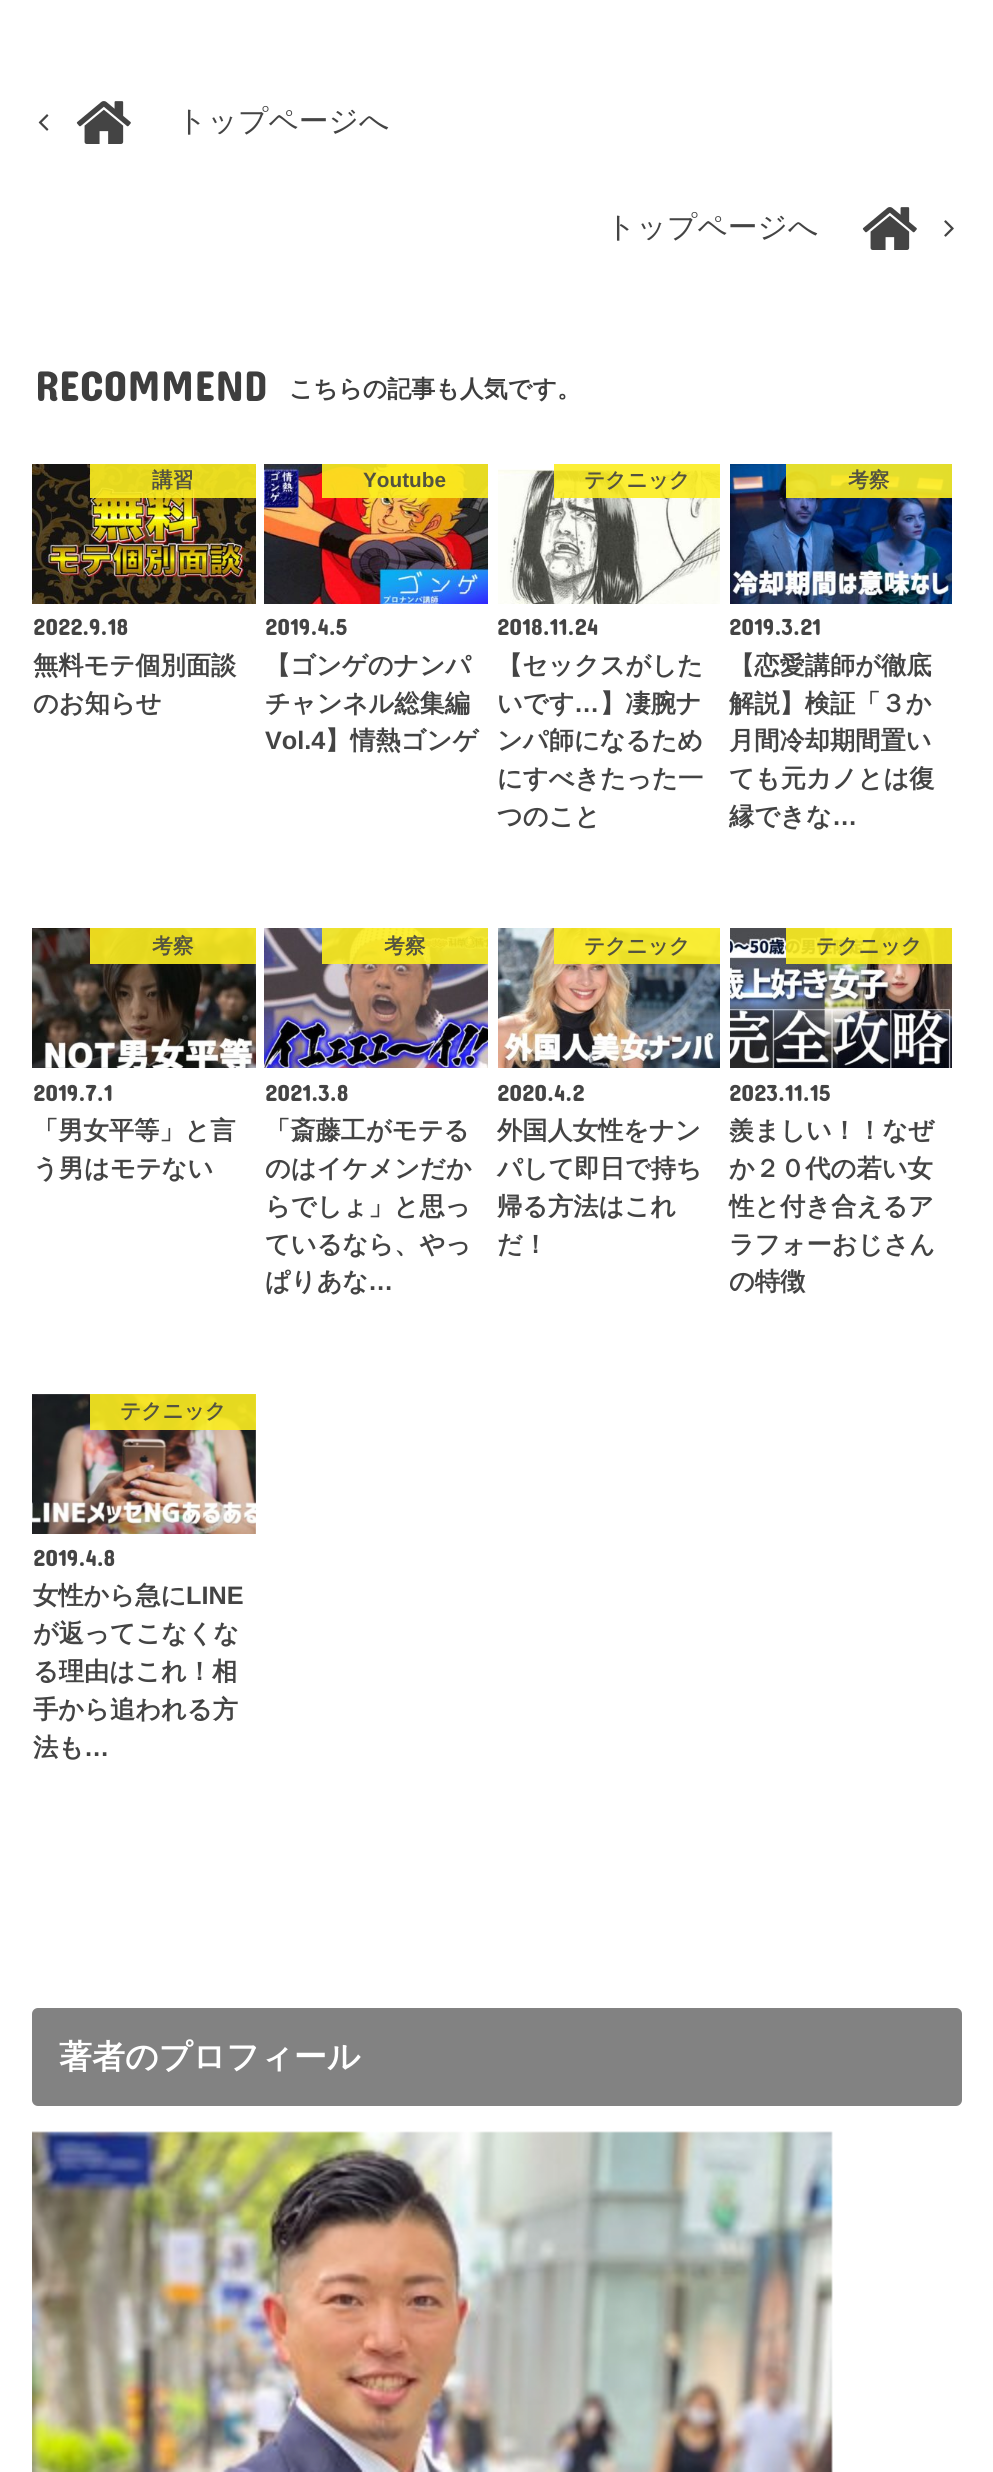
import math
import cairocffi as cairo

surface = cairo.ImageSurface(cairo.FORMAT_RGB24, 993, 2472)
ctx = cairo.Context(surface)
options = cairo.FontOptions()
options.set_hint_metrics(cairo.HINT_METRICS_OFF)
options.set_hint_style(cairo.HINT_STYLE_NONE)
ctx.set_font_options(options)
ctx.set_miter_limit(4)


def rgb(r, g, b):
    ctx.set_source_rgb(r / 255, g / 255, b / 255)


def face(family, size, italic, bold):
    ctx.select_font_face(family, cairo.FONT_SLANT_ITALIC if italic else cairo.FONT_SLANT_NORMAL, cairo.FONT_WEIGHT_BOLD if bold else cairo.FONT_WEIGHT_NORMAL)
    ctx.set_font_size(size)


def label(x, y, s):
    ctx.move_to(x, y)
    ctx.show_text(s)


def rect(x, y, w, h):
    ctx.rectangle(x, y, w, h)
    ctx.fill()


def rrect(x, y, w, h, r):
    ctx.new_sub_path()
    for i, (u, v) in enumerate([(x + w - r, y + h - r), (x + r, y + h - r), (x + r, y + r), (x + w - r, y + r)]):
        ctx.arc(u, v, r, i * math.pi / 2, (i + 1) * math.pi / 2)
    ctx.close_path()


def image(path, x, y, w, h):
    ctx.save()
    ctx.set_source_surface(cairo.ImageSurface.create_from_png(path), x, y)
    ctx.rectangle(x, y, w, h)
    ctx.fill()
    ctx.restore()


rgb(255, 255, 255)
ctx.paint()
image('image0.png', 38, 114, 11, 17)
image('image1.png', 76, 101, 55, 43)
face('WenQuanYi Zen Hei Medium', 29.75, 0, 0)
rgb(68, 68, 68)
label(177, 131, 'トップページへ')
label(606, 237, 'トップページへ')
image('image1.png', 862, 207, 55, 43)
image('image2.png', 944, 220, 10, 17)
face('Concert One', 43.25, 0, 0)
rgb(62, 62, 62)
label(35, 401, 'RECOMMEND')
face('WenQuanYi Zen Hei', 24, 0, 1)
label(289, 397, 'こちらの記事も人気です。')
image('image3.png', 32, 464, 224, 140)
ctx.set_source_rgba(0.988, 0.933, 0.129, 0.9)
rect(90, 464, 166, 34)
face('WenQuanYi Zen Hei', 20.75, 0, 1)
rgb(84, 83, 64)
label(152, 487, '講習')
face('Concert One', 23.5, 0, 0)
rgb(68, 68, 68)
label(33, 635, '2022.9.18')
face('WenQuanYi Zen Hei', 25.25, 0, 1)
label(33, 674, '無料モテ個別面談')
label(33, 712, 'のお知らせ')
image('image4.png', 264, 464, 224, 140)
ctx.set_source_rgba(0.988, 0.933, 0.129, 0.9)
rect(322, 464, 166, 34)
face('Liberation Sans', 20.75, 0, 1)
rgb(84, 83, 64)
label(363, 487, 'Youtube')
face('Concert One', 23.5, 0, 0)
rgb(68, 68, 68)
label(265, 635, '2019.4.5')
face('WenQuanYi Zen Hei', 25.25, 0, 1)
label(265, 674, '【ゴンゲのナンパ')
label(265, 712, 'チャンネル総集編')
face('Liberation Sans', 25.25, 0, 1)
label(265, 749, 'Vol.4')
face('WenQuanYi Zen Hei', 25.25, 0, 1)
label(325, 749, '】情熱ゴンゲ')
image('image5.png', 498, 469, 222, 135)
ctx.set_source_rgba(0.988, 0.933, 0.129, 0.9)
rect(554, 464, 166, 34)
face('WenQuanYi Zen Hei', 20.75, 0, 1)
rgb(84, 83, 64)
label(584, 487, 'テクニック')
face('Concert One', 23.5, 0, 0)
rgb(68, 68, 68)
label(497, 635, '2018.11.24')
face('WenQuanYi Zen Hei', 25.25, 0, 1)
label(497, 674, '【セックスがした')
label(497, 712, 'いです')
face('Liberation Sans', 25.25, 0, 1)
label(574, 712, '…')
face('WenQuanYi Zen Hei', 25.25, 0, 1)
label(600, 712, '】凄腕ナ')
label(497, 749, 'ンパ師になるため')
label(497, 787, 'にすべきたった一')
label(497, 825, 'つのこと')
image('image6.png', 730, 464, 222, 140)
ctx.set_source_rgba(0.988, 0.933, 0.129, 0.9)
rect(786, 464, 166, 34)
face('WenQuanYi Zen Hei', 20.75, 0, 1)
rgb(84, 83, 64)
label(848, 487, '考察')
face('Concert One', 23.5, 0, 0)
rgb(68, 68, 68)
label(729, 635, '2019.3.21')
face('WenQuanYi Zen Hei', 25.25, 0, 1)
label(729, 674, '【恋愛講師が徹底')
label(729, 712, '解説】検証「３か')
label(729, 749, '月間冷却期間置い')
label(729, 787, 'ても元カノとは復')
label(729, 825, '縁できな')
face('Liberation Sans', 25.25, 0, 1)
label(832, 825, '…')
image('image7.png', 32, 928, 224, 140)
ctx.set_source_rgba(0.988, 0.933, 0.129, 0.9)
rect(90, 928, 166, 36)
face('WenQuanYi Zen Hei', 20.75, 0, 1)
rgb(84, 83, 64)
label(152, 953, '考察')
face('Concert One', 23.5, 0, 0)
rgb(68, 68, 68)
label(33, 1101, '2019.7.1')
face('WenQuanYi Zen Hei', 25.25, 0, 1)
label(33, 1139, '「男女平等」と言')
label(33, 1177, 'う男はモテない')
image('image8.png', 264, 928, 224, 140)
ctx.set_source_rgba(0.988, 0.933, 0.129, 0.9)
rect(322, 928, 166, 36)
face('WenQuanYi Zen Hei', 20.75, 0, 1)
rgb(84, 83, 64)
label(384, 953, '考察')
face('Concert One', 23.5, 0, 0)
rgb(68, 68, 68)
label(265, 1101, '2021.3.8')
face('WenQuanYi Zen Hei', 25.25, 0, 1)
label(265, 1139, '「斎藤工がモテる')
label(265, 1177, 'のはイケメンだか')
label(265, 1215, 'らでしょ」と思っ')
label(265, 1253, 'ているなら、やっ')
label(265, 1290, 'ぱりあな')
face('Liberation Sans', 25.25, 0, 1)
label(368, 1290, '…')
image('image9.png', 498, 928, 222, 140)
ctx.set_source_rgba(0.988, 0.933, 0.129, 0.9)
rect(554, 928, 166, 36)
face('WenQuanYi Zen Hei', 20.75, 0, 1)
rgb(84, 83, 64)
label(584, 953, 'テクニック')
face('Concert One', 23.5, 0, 0)
rgb(68, 68, 68)
label(497, 1101, '2020.4.2')
face('WenQuanYi Zen Hei', 25.25, 0, 1)
label(497, 1139, '外国人女性をナン')
label(497, 1177, 'パして即日で持ち')
label(497, 1215, '帰る方法はこれ')
label(497, 1253, 'だ！')
image('image10.png', 730, 928, 222, 140)
ctx.set_source_rgba(0.988, 0.933, 0.129, 0.9)
rect(786, 928, 166, 36)
face('WenQuanYi Zen Hei', 20.75, 0, 1)
rgb(84, 83, 64)
label(816, 953, 'テクニック')
face('Concert One', 23.5, 0, 0)
rgb(68, 68, 68)
label(729, 1101, '2023.11.15')
face('WenQuanYi Zen Hei', 25.25, 0, 1)
label(729, 1139, '羨ましい！！なぜ')
label(729, 1177, 'か２０代の若い女')
label(729, 1215, '性と付き合えるア')
label(729, 1253, 'ラフォーおじさん')
label(729, 1290, 'の特徴')
image('image11.png', 32, 1394, 224, 140)
ctx.set_source_rgba(0.988, 0.933, 0.129, 0.9)
rect(90, 1394, 166, 36)
face('WenQuanYi Zen Hei', 20.75, 0, 1)
rgb(84, 83, 64)
label(120, 1418, 'テクニック')
face('Concert One', 23.5, 0, 0)
rgb(68, 68, 68)
label(33, 1566, '2019.4.8')
face('WenQuanYi Zen Hei', 25.25, 0, 1)
label(33, 1604, '女性から急に')
face('Liberation Sans', 25.25, 0, 1)
label(186, 1604, 'LINE')
face('WenQuanYi Zen Hei', 25.25, 0, 1)
label(33, 1642, 'が返ってこなくな')
label(33, 1680, 'る理由はこれ！相')
label(33, 1718, '手から追われる方')
label(33, 1756, '法も')
face('Liberation Sans', 25.25, 0, 1)
label(84, 1756, '…')
rgb(130, 130, 130)
rrect(32, 2008, 930, 98, 6)
ctx.fill()
face('WenQuanYi Zen Hei', 33, 0, 1)
rgb(255, 255, 255)
label(59, 2068, '著者のプロフィール')
image('image12.png', 32, 2131, 801, 341)
surface.write_to_png('render.png')
